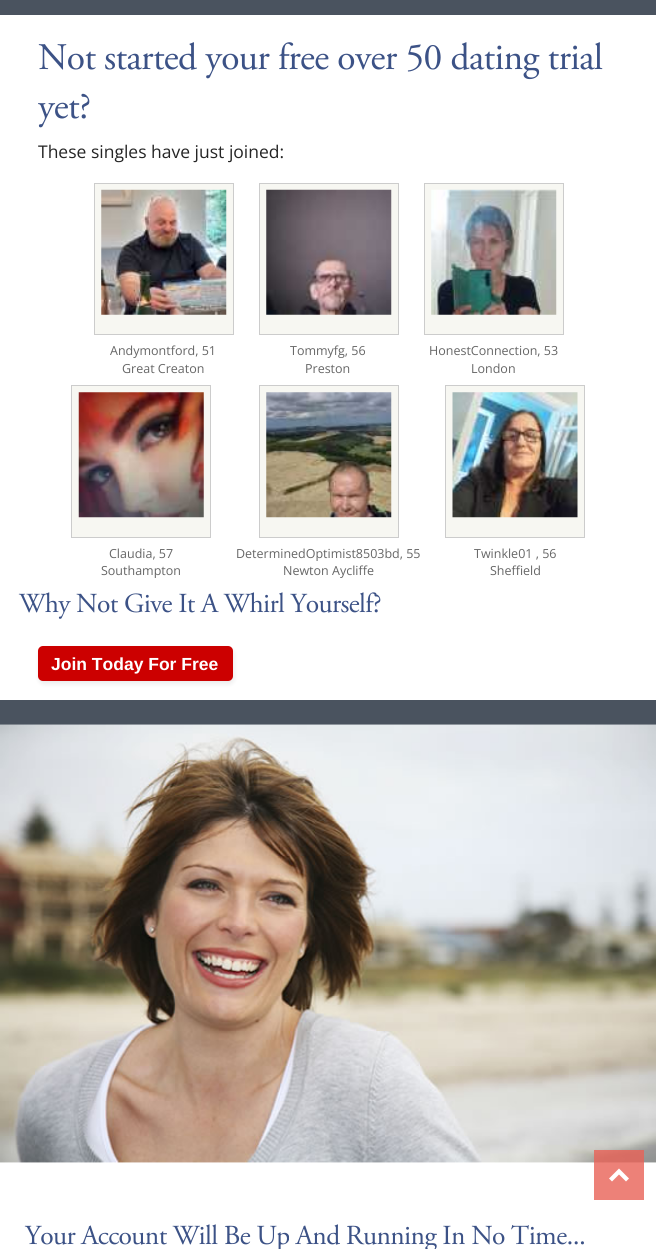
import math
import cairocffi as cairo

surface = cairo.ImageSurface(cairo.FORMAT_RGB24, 656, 1249)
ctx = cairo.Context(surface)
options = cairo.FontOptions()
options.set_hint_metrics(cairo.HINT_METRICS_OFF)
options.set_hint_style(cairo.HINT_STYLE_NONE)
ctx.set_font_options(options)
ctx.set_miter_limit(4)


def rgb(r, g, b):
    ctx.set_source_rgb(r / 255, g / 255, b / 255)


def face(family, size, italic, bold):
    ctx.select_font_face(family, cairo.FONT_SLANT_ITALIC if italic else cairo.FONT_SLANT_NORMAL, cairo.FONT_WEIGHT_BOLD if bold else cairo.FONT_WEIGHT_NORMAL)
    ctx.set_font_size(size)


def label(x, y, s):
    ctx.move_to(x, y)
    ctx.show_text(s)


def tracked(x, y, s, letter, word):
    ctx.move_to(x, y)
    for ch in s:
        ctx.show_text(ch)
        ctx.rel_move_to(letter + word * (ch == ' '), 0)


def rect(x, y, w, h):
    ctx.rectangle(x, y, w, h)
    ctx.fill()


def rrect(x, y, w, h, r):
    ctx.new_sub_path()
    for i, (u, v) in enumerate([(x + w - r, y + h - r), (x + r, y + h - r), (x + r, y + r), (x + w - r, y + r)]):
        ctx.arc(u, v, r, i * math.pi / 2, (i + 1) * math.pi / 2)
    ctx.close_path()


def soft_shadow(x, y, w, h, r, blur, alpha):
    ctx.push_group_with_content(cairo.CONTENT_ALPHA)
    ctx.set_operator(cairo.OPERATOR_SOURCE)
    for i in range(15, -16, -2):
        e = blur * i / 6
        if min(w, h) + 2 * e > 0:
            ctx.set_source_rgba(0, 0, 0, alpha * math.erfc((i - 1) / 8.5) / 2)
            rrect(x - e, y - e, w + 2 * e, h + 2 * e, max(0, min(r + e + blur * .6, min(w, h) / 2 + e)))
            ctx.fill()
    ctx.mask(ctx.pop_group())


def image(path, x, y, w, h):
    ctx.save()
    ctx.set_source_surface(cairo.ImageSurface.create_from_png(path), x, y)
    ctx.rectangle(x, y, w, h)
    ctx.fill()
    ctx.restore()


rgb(74, 83, 95)
ctx.paint()
rgb(255, 255, 255)
rect(0, 15, 656, 685)
face('Adobe Garamond', 37.5, 0, 0)
rgb(60, 82, 134)
tracked(38, 69, 'Not started your free over 50 dating trial', -0.6, 0)
tracked(38, 118, 'yet?', -0.6, 0)
face('Open Sans', 17.5, 0, 0)
rgb(37, 37, 37)
label(38, 158, 'These singles have just joined:')
rgb(247, 247, 242)
ctx.rectangle(94.5, 183.5, 139, 151)
ctx.fill_preserve()
rgb(204, 204, 204)
ctx.set_line_width(1)
ctx.stroke()
image('image0.png', 101, 189, 126, 126)
face('Open Sans', 12.5, 0, 0)
rgb(102, 102, 102)
label(110, 355, 'Andymontford, 51')
label(122, 373, 'Great Creaton')
rgb(247, 247, 242)
ctx.rectangle(259.5, 183.5, 139, 151)
ctx.fill_preserve()
rgb(204, 204, 204)
ctx.stroke()
image('image1.png', 266, 189, 126, 126)
rgb(102, 102, 102)
label(290, 355, 'Tommyfg, 56')
label(305, 373, 'Preston')
rgb(247, 247, 242)
ctx.rectangle(424.5, 183.5, 139, 151)
ctx.fill_preserve()
rgb(204, 204, 204)
ctx.stroke()
image('image2.png', 431, 189, 126, 126)
rgb(102, 102, 102)
label(429, 355, 'HonestConnection, 53')
label(471, 373, 'London')
rgb(247, 247, 242)
ctx.rectangle(71.5, 385.5, 139, 152)
ctx.fill_preserve()
rgb(204, 204, 204)
ctx.stroke()
image('image3.png', 78, 392, 126, 126)
rgb(102, 102, 102)
label(109, 558, 'Claudia, 57')
label(101, 575, 'Southampton')
rgb(247, 247, 242)
ctx.rectangle(259.5, 385.5, 139, 152)
ctx.fill_preserve()
rgb(204, 204, 204)
ctx.stroke()
image('image4.png', 266, 392, 126, 126)
rgb(102, 102, 102)
label(236, 558, 'DeterminedOptimist8503bd, 55')
label(283, 575, 'Newton Aycliffe')
rgb(247, 247, 242)
ctx.rectangle(445.5, 385.5, 139, 152)
ctx.fill_preserve()
rgb(204, 204, 204)
ctx.stroke()
image('image5.png', 452, 392, 126, 126)
rgb(102, 102, 102)
label(474, 558, 'Twinkle01 , 56')
label(490, 575, 'Sheffield')
face('Adobe Garamond', 27.5, 0, 0)
rgb(60, 82, 134)
tracked(19, 612, 'Why Not Give It A Whirl Yourself?', -0.6, 0)
rgb(0, 0, 0)
soft_shadow(39, 649, 195, 35, 5, 2.5, 0.08)
rgb(204, 0, 0)
rrect(38, 646, 195, 35, 5)
ctx.fill()
face('Liberation Sans', 17.5, 0, 1)
rgb(255, 255, 255)
label(51, 670, 'Join Today For Free')
rect(0, 1162, 656, 87)
image('image6.png', 0, 724, 656, 439)
image('image7.png', 0, 724, 656, 439)
face('Adobe Garamond', 27.5, 0, 0)
rgb(60, 82, 134)
tracked(25, 1244, 'Your Account Will Be Up And Running In No Time...', -0.6, 0)
ctx.set_source_rgba(0.91, 0.384, 0.337, 0.8)
rect(594, 1150, 50, 50)
rgb(255, 255, 255)
ctx.new_path()
ctx.move_to(619, 1168.5)
ctx.line_to(629, 1178.5)
ctx.line_to(626, 1181.5)
ctx.line_to(619, 1174.5)
ctx.line_to(612, 1181.5)
ctx.line_to(609, 1178.5)
ctx.close_path()
ctx.fill()
surface.write_to_png('render.png')
